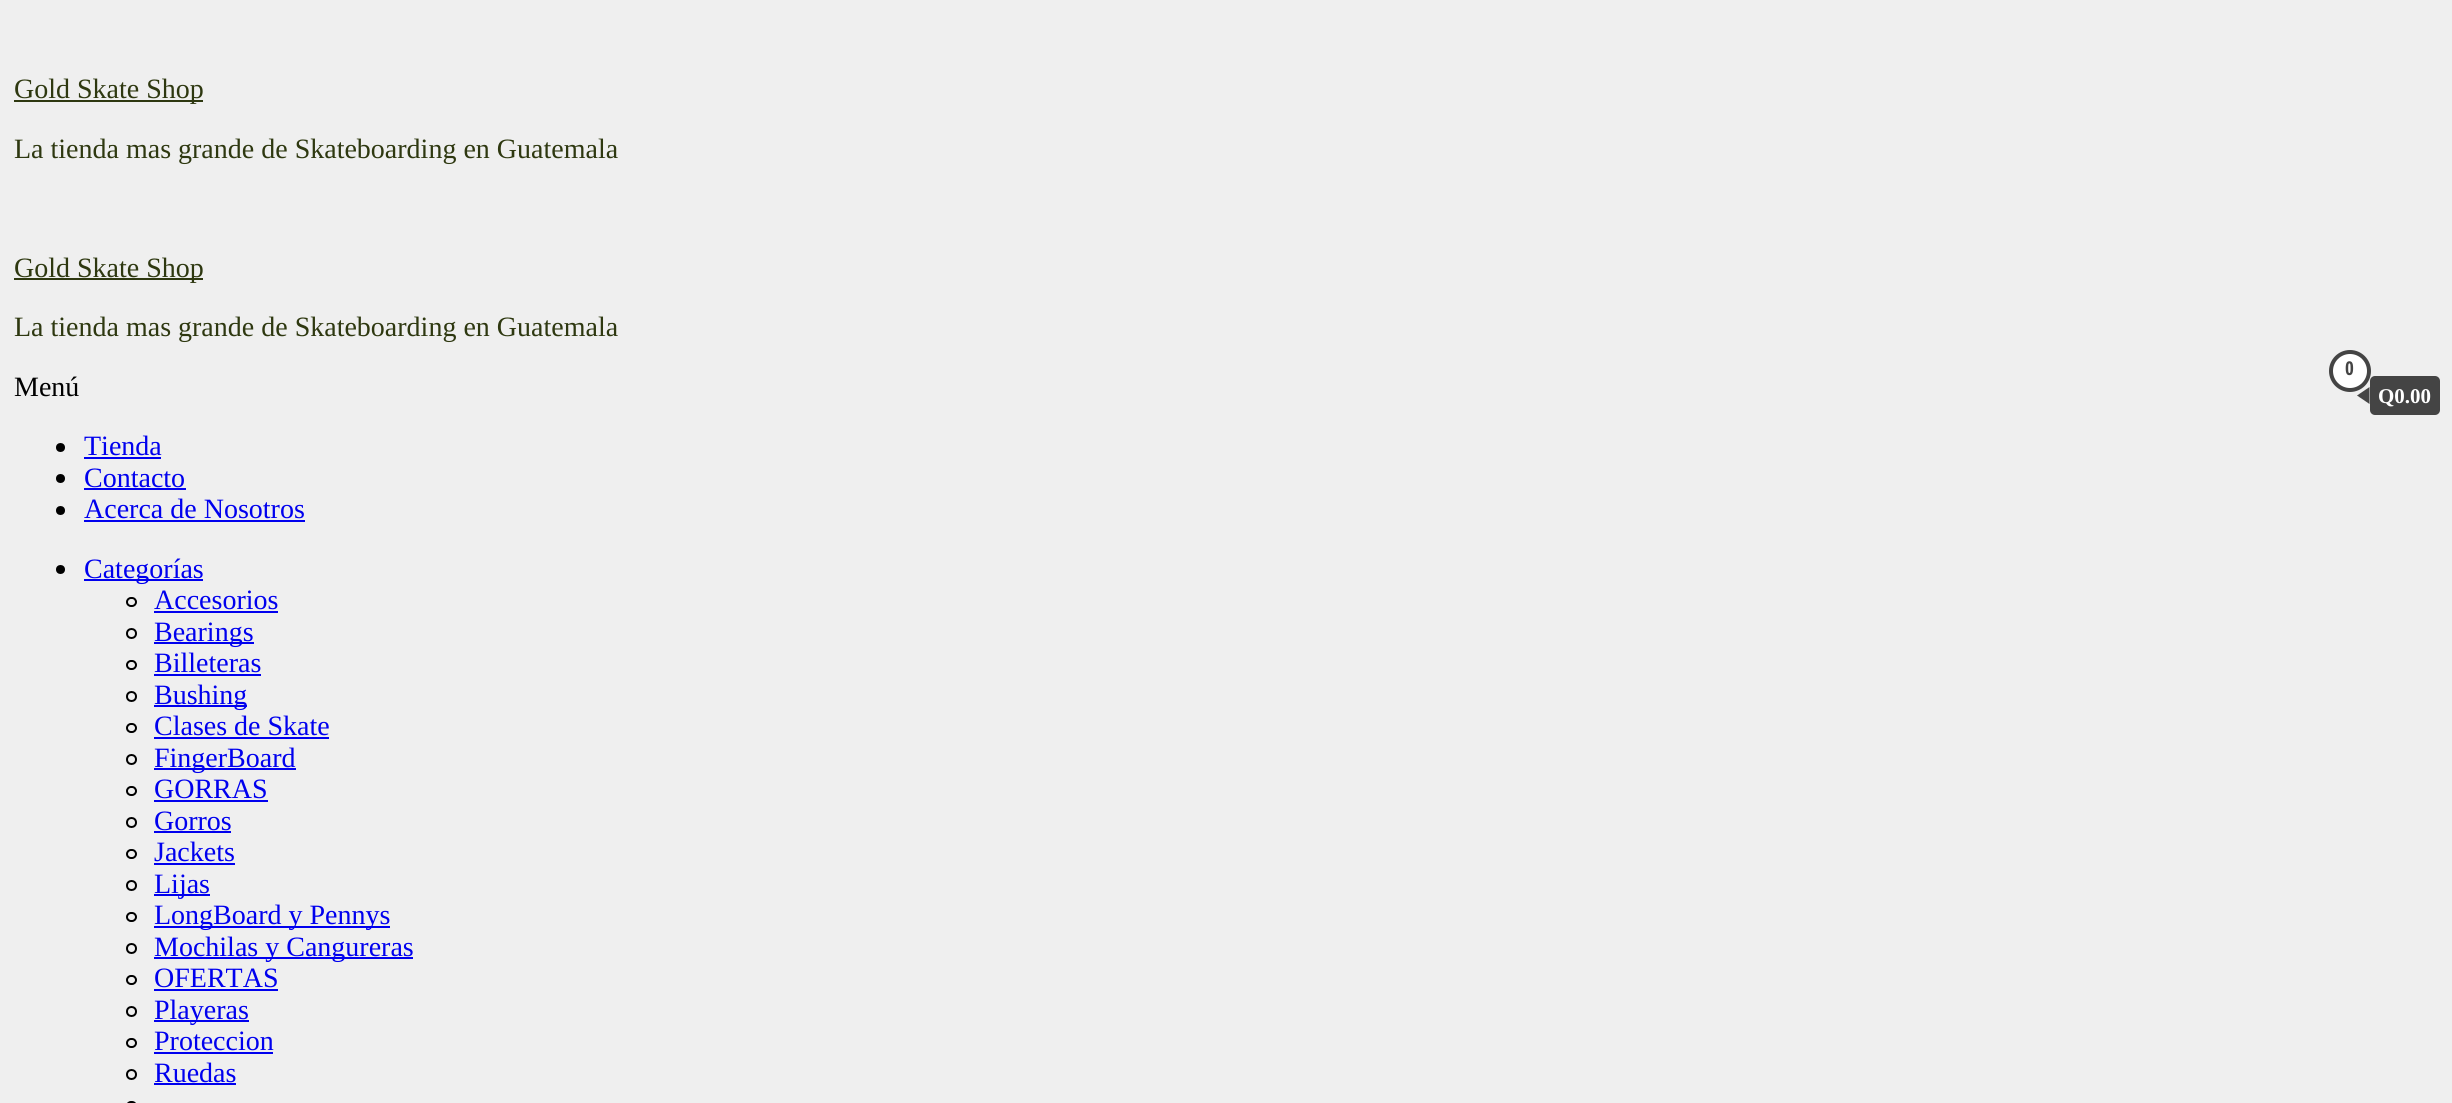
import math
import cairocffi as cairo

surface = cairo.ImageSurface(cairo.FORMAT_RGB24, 2452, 1103)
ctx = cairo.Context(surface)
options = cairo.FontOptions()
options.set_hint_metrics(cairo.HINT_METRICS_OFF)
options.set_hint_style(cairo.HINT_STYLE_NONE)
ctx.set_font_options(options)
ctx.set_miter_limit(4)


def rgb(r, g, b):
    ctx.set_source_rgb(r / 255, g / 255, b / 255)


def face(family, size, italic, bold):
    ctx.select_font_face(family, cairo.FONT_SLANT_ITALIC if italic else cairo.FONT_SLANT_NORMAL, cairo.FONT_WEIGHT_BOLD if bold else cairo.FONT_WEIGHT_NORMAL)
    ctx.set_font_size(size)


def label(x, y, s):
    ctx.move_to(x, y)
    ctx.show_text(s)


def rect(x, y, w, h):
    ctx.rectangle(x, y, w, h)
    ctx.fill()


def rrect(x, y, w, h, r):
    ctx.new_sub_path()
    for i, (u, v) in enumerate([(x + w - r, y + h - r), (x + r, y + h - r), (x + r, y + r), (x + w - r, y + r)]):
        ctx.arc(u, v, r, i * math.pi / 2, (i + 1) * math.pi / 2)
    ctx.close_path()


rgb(239, 239, 239)
ctx.paint()
rgb(46, 56, 16)
rect(14, 100, 189, 2)
face('Liberation Serif', 28, 0, 0)
label(14, 98, 'Gold Skate Shop')
label(14, 158, 'La tienda mas grande de Skateboarding en Guatemala')
rect(14, 278, 189, 2)
label(14, 277, 'Gold Skate Shop')
label(14, 336, 'La tienda mas grande de Skateboarding en Guatemala')
rgb(0, 0, 0)
label(14, 396, 'Menú')
rgb(255, 255, 255)
ctx.new_path()
ctx.arc(2350, 371, 19, 0, 2 * math.pi)
ctx.fill_preserve()
rgb(68, 68, 68)
ctx.set_line_width(4)
ctx.stroke()
face('Open Sans Condensed', 19, 0, 1)
label(2345, 375, '0')
rrect(2370, 376, 70, 39, 5)
ctx.fill()
ctx.new_path()
ctx.move_to(2369.5, 387)
ctx.line_to(2369.5, 404)
ctx.line_to(2357, 395.5)
ctx.close_path()
ctx.fill()
face('Liberation Serif', 21, 0, 1)
rgb(255, 255, 255)
label(2378, 403, 'Q0.00')
rgb(0, 0, 0)
ctx.new_path()
ctx.arc(60.5, 447.5, 4.5, 0, 2 * math.pi)
ctx.fill()
face('Liberation Serif', 28, 0, 0)
rgb(0, 0, 238)
label(84, 455, 'Tienda')
rect(84, 457, 77, 2)
rgb(0, 0, 0)
ctx.new_path()
ctx.arc(60.5, 478.5, 4.5, 0, 2 * math.pi)
ctx.fill()
rgb(0, 0, 238)
label(84, 487, 'Contacto')
rect(84, 488, 102, 2)
rgb(0, 0, 0)
ctx.new_path()
ctx.arc(60.5, 510.5, 4.5, 0, 2 * math.pi)
ctx.fill()
rgb(0, 0, 238)
label(84, 518, 'Acerca de Nosotros')
rect(84, 520, 221, 2)
rgb(0, 0, 0)
ctx.new_path()
ctx.arc(60.5, 569.5, 4.5, 0, 2 * math.pi)
ctx.fill()
rgb(0, 0, 238)
rect(84, 579, 119, 2)
label(84, 578, 'Categorías')
rrect(127, 598, 9, 8, 4)
rgb(0, 0, 0)
ctx.set_line_width(2)
ctx.stroke()
rgb(0, 0, 238)
label(154, 609, 'Accesorios')
rect(154, 611, 124, 2)
ctx.new_path()
ctx.arc(131.5, 633.5, 4.5, 0, 2 * math.pi)
rgb(0, 0, 0)
ctx.stroke()
rgb(0, 0, 238)
rect(154, 642, 100, 2)
label(154, 641, 'Bearings')
rrect(127, 661, 9, 8, 4)
rgb(0, 0, 0)
ctx.stroke()
rgb(0, 0, 238)
label(154, 672, 'Billeteras')
rect(154, 674, 107, 2)
ctx.new_path()
ctx.arc(131.5, 696.5, 4.5, 0, 2 * math.pi)
rgb(0, 0, 0)
ctx.stroke()
rgb(0, 0, 238)
rect(154, 705, 93, 2)
label(154, 704, 'Bushing')
rrect(127, 724, 9, 8, 4)
rgb(0, 0, 0)
ctx.stroke()
rgb(0, 0, 238)
label(154, 735, 'Clases de Skate')
rect(154, 737, 175, 2)
ctx.new_path()
ctx.arc(131.5, 759.5, 4.5, 0, 2 * math.pi)
rgb(0, 0, 0)
ctx.stroke()
rgb(0, 0, 238)
rect(154, 768, 142, 2)
label(154, 767, 'FingerBoard')
rrect(127, 787, 9, 8, 4)
rgb(0, 0, 0)
ctx.stroke()
rgb(0, 0, 238)
label(154, 798, 'GORRAS')
rect(154, 800, 114, 2)
ctx.new_path()
ctx.arc(131.5, 822.5, 4.5, 0, 2 * math.pi)
rgb(0, 0, 0)
ctx.stroke()
rgb(0, 0, 238)
label(154, 830, 'Gorros')
rect(154, 831, 77, 2)
rrect(127, 850, 9, 8, 4)
rgb(0, 0, 0)
ctx.stroke()
rgb(0, 0, 238)
label(154, 861, 'Jackets')
rect(154, 863, 81, 2)
ctx.new_path()
ctx.arc(131.5, 885.5, 4.5, 0, 2 * math.pi)
rgb(0, 0, 0)
ctx.stroke()
rgb(0, 0, 238)
rect(154, 894, 56, 2)
label(154, 893, 'Lijas')
rrect(127, 913, 9, 8, 4)
rgb(0, 0, 0)
ctx.stroke()
rgb(0, 0, 238)
rect(154, 926, 236, 2)
label(154, 924, 'LongBoard y Pennys')
ctx.new_path()
ctx.arc(131.5, 948.5, 4.5, 0, 2 * math.pi)
rgb(0, 0, 0)
ctx.stroke()
rgb(0, 0, 238)
rect(154, 957, 259, 2)
label(154, 956, 'Mochilas y Cangureras')
rrect(127, 976, 9, 8, 4)
rgb(0, 0, 0)
ctx.stroke()
rgb(0, 0, 238)
label(154, 987, 'OFERTAS')
rect(154, 989, 124, 2)
ctx.new_path()
ctx.arc(131.5, 1011.5, 4.5, 0, 2 * math.pi)
rgb(0, 0, 0)
ctx.stroke()
rgb(0, 0, 238)
rect(154, 1020, 95, 2)
label(154, 1019, 'Playeras')
rrect(127, 1039, 9, 8, 4)
rgb(0, 0, 0)
ctx.stroke()
rgb(0, 0, 238)
label(154, 1050, 'Proteccion')
rect(154, 1052, 119, 2)
ctx.new_path()
ctx.arc(131.5, 1074.5, 4.5, 0, 2 * math.pi)
rgb(0, 0, 0)
ctx.stroke()
rgb(0, 0, 238)
label(154, 1082, 'Ruedas')
rect(154, 1083, 82, 2)
rrect(127, 1102, 9, 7, 4)
rgb(0, 0, 0)
ctx.stroke()
surface.write_to_png('render.png')
